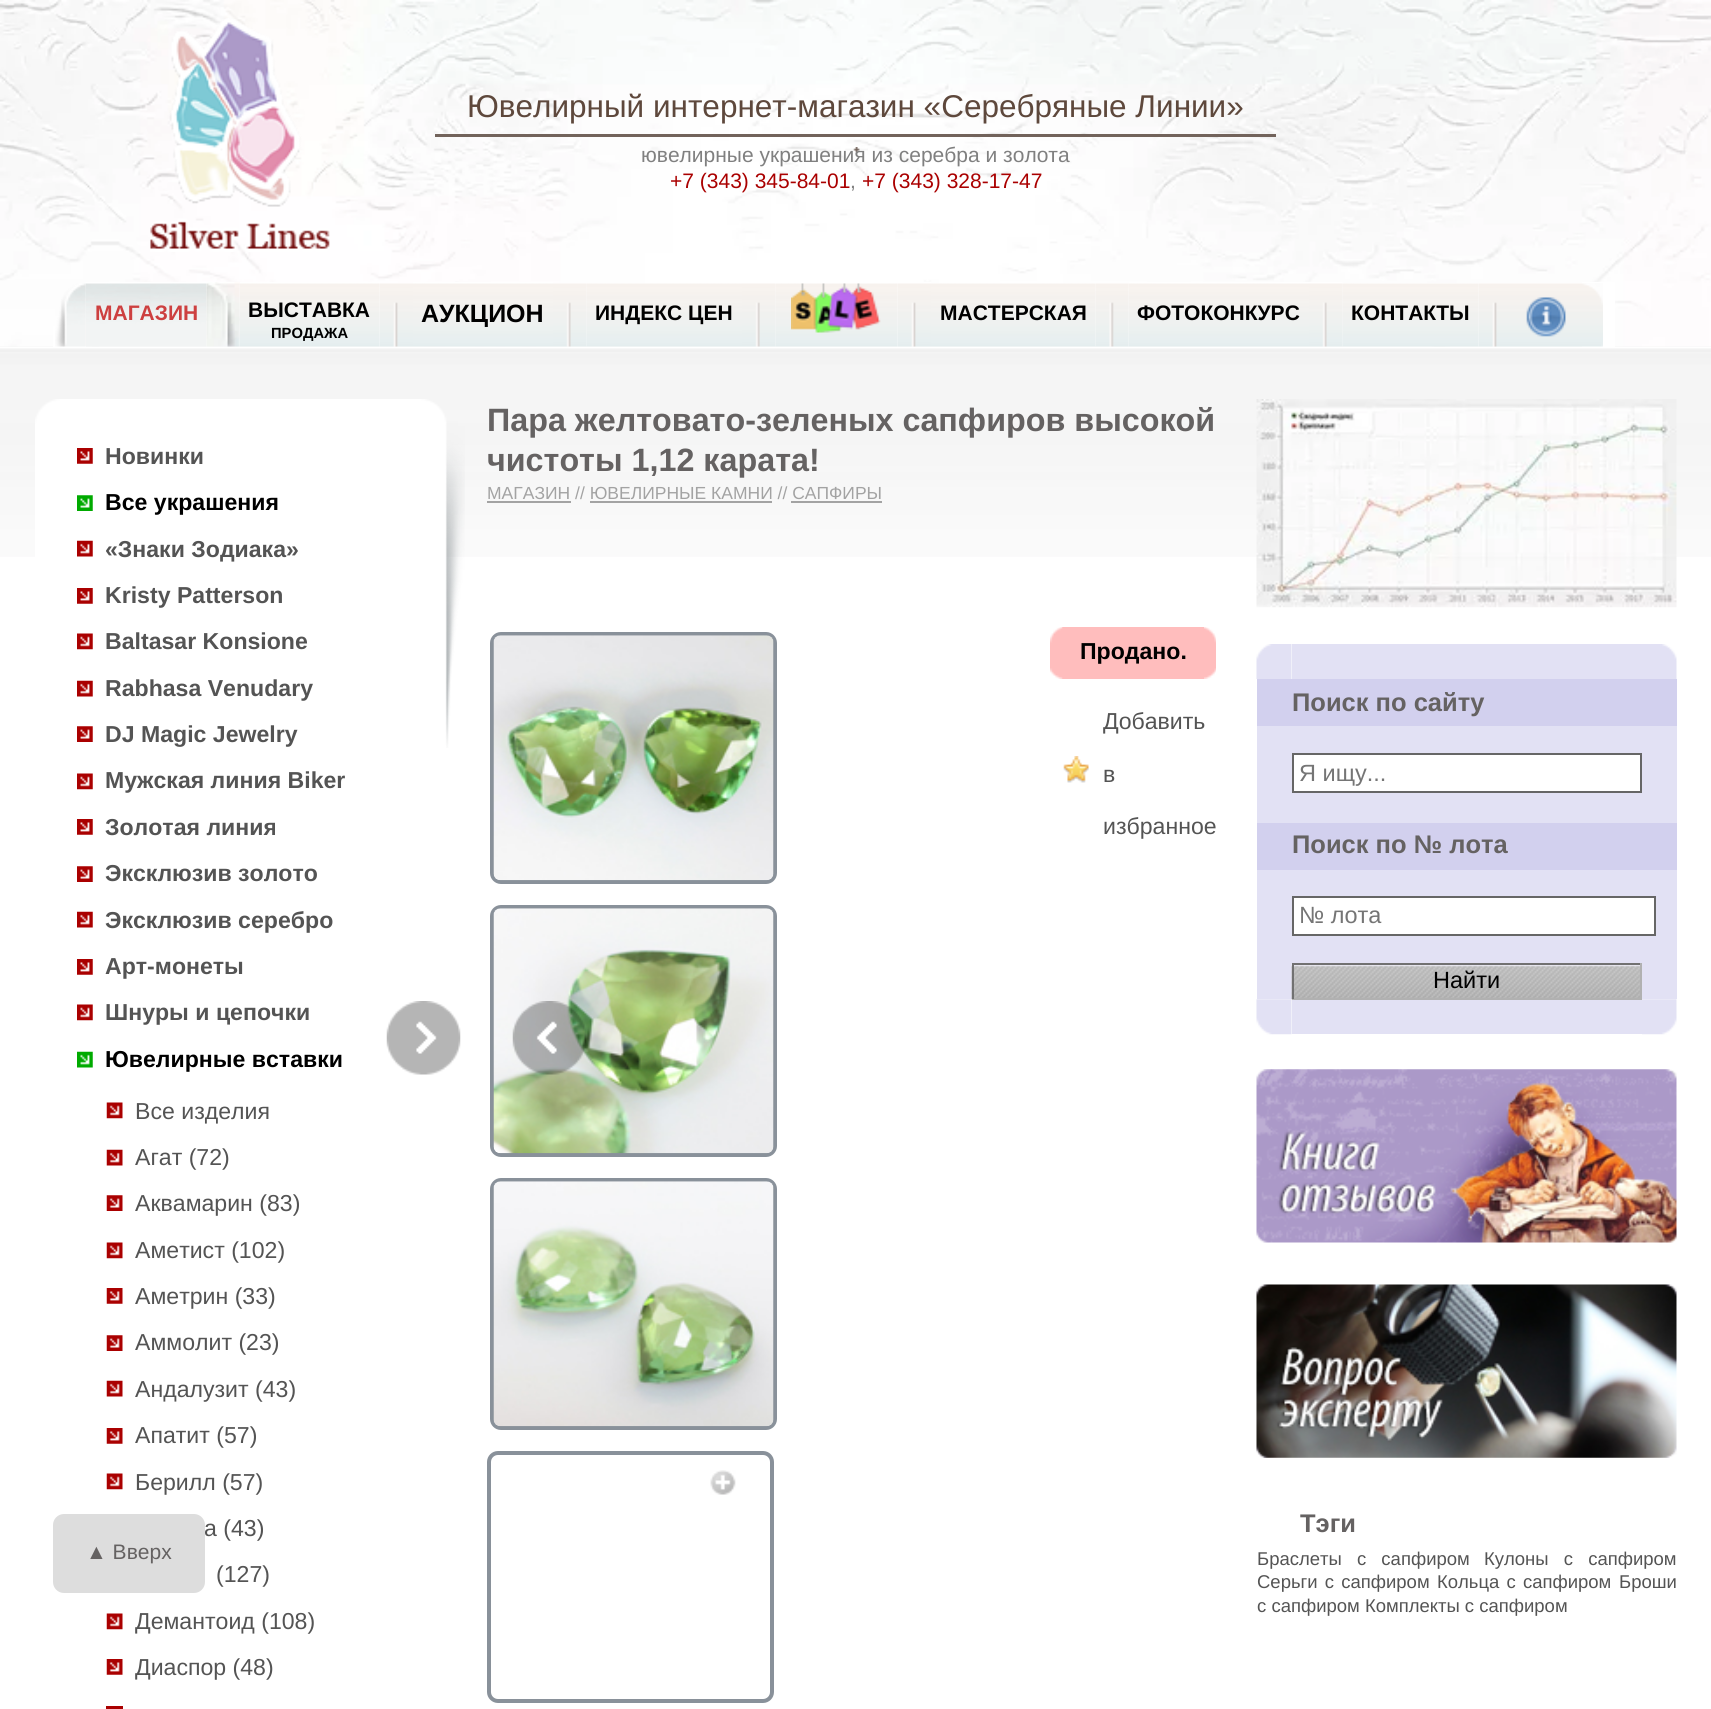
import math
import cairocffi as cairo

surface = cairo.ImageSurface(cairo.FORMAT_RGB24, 1711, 1709)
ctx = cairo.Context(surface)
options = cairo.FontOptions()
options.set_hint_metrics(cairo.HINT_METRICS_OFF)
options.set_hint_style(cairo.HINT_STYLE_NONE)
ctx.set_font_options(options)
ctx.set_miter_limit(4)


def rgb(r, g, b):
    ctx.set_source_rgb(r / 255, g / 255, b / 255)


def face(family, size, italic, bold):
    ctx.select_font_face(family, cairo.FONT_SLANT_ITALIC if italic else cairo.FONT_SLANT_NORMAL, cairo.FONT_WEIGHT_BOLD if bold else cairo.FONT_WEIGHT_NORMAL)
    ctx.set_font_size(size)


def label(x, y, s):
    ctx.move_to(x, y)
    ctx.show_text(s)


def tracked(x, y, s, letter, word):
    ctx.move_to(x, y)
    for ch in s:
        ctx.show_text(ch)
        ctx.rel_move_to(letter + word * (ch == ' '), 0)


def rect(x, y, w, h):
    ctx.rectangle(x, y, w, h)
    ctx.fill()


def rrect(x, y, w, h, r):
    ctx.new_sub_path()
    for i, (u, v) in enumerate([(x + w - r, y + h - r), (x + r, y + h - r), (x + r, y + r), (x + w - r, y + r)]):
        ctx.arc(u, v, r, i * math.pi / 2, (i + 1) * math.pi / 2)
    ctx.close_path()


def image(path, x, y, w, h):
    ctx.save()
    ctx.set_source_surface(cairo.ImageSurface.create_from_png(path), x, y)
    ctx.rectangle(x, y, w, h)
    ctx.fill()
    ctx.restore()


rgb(255, 255, 255)
ctx.paint()
rgb(246, 246, 246)
rect(0, 346, 1711, 1)
image('image0.png', 0, 0, 1711, 347)
image('image1.png', 150, 18, 180, 234)
face('Liberation Sans', 31.5, 0, 0)
rgb(94, 72, 60)
label(467, 117, 'Ювелирный интернет-магазин «Серебряные Линии»')
rgb(114, 99, 91)
rect(435, 134, 841, 3)
image('image2.png', 845, 147, 23, 6)
face('Liberation Sans', 21, 0, 0)
rgb(128, 128, 128)
label(641, 162, 'ювелирные украшения из серебра и золота')
rgb(170, 0, 0)
label(670, 188, '+7 (343) 345-84-01')
rgb(128, 128, 128)
label(850, 188, ',')
rgb(170, 0, 0)
label(862, 188, '+7 (343) 328-17-47')
rgb(255, 255, 255)
rect(53, 326, 33, 21)
image('image3.png', 55, 283, 31, 64)
image('image4.png', 85, 282, 122, 65)
face('Liberation Sans', 21, 0, 1)
rgb(205, 64, 64)
label(95, 320, 'МАГАЗИН')
image('image5.png', 206, 282, 34, 65)
image('image6.png', 240, 282, 140, 65)
rgb(0, 0, 0)
label(248, 317, 'ВЫСТАВКА')
face('Liberation Sans', 14.75, 0, 1)
label(271, 338, 'ПРОДАЖА')
image('image7.png', 380, 283, 33, 64)
image('image8.png', 413, 282, 140, 65)
face('Liberation Sans', 25, 0, 1)
label(421, 322, 'АУКЦИОН')
image('image9.png', 553, 283, 34, 64)
image('image10.png', 586, 283, 156, 64)
face('Liberation Sans', 21, 0, 1)
label(595, 320, 'ИНДЕКС ЦЕН')
image('image11.png', 742, 283, 34, 64)
image('image12.png', 775, 283, 123, 64)
image('image13.png', 791, 283, 90, 50)
image('image14.png', 898, 282, 33, 65)
image('image15.png', 931, 283, 165, 64)
label(940, 320, 'МАСТЕРСКАЯ')
image('image16.png', 1095, 283, 34, 64)
image('image17.png', 1129, 282, 180, 65)
label(1137, 320, 'ФОТОКОНКУРС')
image('image18.png', 1309, 282, 34, 65)
image('image19.png', 1342, 283, 137, 64)
label(1351, 320, 'КОНТАКТЫ')
image('image20.png', 1479, 283, 33, 64)
image('image21.png', 1512, 283, 70, 64)
image('image22.png', 1526, 297, 40, 40)
rgb(255, 255, 255)
rect(1582, 282, 33, 65)
image('image23.png', 1582, 283, 21, 64)
image('image24.png', 0, 348, 1711, 209)
image('image25.png', 35, 399, 430, 349)
image('image26.png', 77, 448, 16, 16)
face('Liberation Sans', 23.1, 0, 1)
rgb(84, 84, 84)
label(105, 464, 'Новинки')
image('image27.png', 77, 495, 16, 16)
rgb(0, 0, 0)
label(105, 510, 'Все украшения')
image('image28.png', 77, 540, 16, 17)
rgb(84, 84, 84)
label(105, 557, '«Знаки Зодиака»')
image('image26.png', 77, 588, 16, 16)
label(105, 603, 'Kristy Patterson')
image('image29.png', 77, 633, 16, 17)
label(105, 649, 'Baltasar Konsione')
image('image28.png', 77, 680, 16, 17)
label(105, 696, 'Rabhasa Venudary')
image('image30.png', 77, 726, 16, 16)
label(105, 742, 'DJ Magic Jewelry')
image('image29.png', 77, 773, 16, 17)
label(105, 788, 'Мужская линия Biker')
image('image26.png', 77, 819, 16, 16)
label(105, 835, 'Золотая линия')
image('image30.png', 77, 866, 16, 16)
label(105, 881, 'Эксклюзив золото')
image('image28.png', 77, 911, 16, 17)
label(105, 928, 'Эксклюзив серебро')
image('image26.png', 77, 959, 16, 16)
label(105, 974, 'Арт-монеты')
image('image29.png', 77, 1004, 16, 17)
label(105, 1020, 'Шнуры и цепочки')
image('image31.png', 77, 1051, 16, 17)
rgb(0, 0, 0)
label(105, 1067, 'Ювелирные вставки')
image('image32.png', 106, 1102, 17, 17)
face('Liberation Sans', 23.1, 0, 0)
rgb(84, 84, 84)
label(135, 1119, 'Все изделия')
image('image33.png', 106, 1149, 17, 17)
label(135, 1165, 'Агат (72)')
image('image34.png', 106, 1195, 17, 16)
label(135, 1211, 'Аквамарин (83)')
image('image32.png', 106, 1242, 17, 17)
label(135, 1258, 'Аметист (102)')
image('image35.png', 106, 1288, 17, 16)
label(135, 1304, 'Аметрин (33)')
image('image34.png', 106, 1335, 17, 16)
label(135, 1350, 'Аммолит (23)')
image('image33.png', 106, 1380, 17, 17)
label(135, 1397, 'Андалузит (43)')
image('image35.png', 106, 1428, 17, 16)
label(135, 1443, 'Апатит (57)')
image('image32.png', 106, 1473, 17, 17)
label(135, 1490, 'Берилл (57)')
label(204, 1536, 'а (43)')
label(216, 1582, '(127)')
image('image32.png', 106, 1613, 17, 17)
label(135, 1629, 'Демантоид (108)')
image('image35.png', 106, 1659, 17, 16)
label(135, 1675, 'Диаспор (48)')
rgb(170, 0, 0)
rect(106, 1706, 17, 3)
face('Liberation Sans', 32.3, 0, 1)
rgb(101, 98, 98)
label(487, 431, 'Пара желтовато-зеленых сапфиров высокой')
label(487, 471, 'чистоты 1,12 карата!')
face('Liberation Sans', 17.5, 0, 0)
rgb(163, 163, 163)
label(487, 499, 'МАГАЗИН // ЮВЕЛИРНЫЕ КАМНИ // САПФИРЫ')
rect(487, 501, 84, 2)
rect(590, 501, 182, 2)
rect(791, 501, 91, 2)
rrect(492, 634, 283, 248, 9)
rgb(137, 145, 154)
ctx.set_line_width(4)
ctx.stroke()
image('image36.png', 493, 635, 281, 246)
rrect(492, 907, 283, 248, 9)
ctx.stroke()
image('image37.png', 493, 908, 281, 246)
rrect(492, 1180, 283, 248, 9)
ctx.stroke()
image('image38.png', 493, 1181, 281, 246)
rrect(489, 1453, 283, 248, 9)
ctx.stroke()
image('image39.png', 710, 1470, 26, 25)
rgb(255, 189, 189)
rect(1050, 627, 166, 52)
image('image40.png', 1050, 627, 13, 52)
image('image41.png', 1204, 627, 12, 52)
face('Liberation Sans', 23.1, 0, 1)
rgb(0, 0, 0)
label(1080, 659, 'Продано.')
image('image42.png', 1063, 756, 26, 27)
face('Liberation Sans', 23.1, 0, 0)
rgb(84, 84, 84)
label(1103, 729, 'Добавить')
label(1103, 782, 'в')
label(1103, 834, 'избранное')
image('image43.png', 386, 1001, 75, 74)
image('image44.png', 512, 1001, 75, 74)
image('image45.png', 1256, 399, 421, 209)
image('image46.png', 1256, 644, 36, 35)
rgb(226, 225, 244)
rect(1292, 644, 350, 35)
image('image47.png', 1642, 644, 35, 35)
rgb(210, 208, 238)
rect(1257, 679, 35, 47)
rect(1292, 679, 385, 47)
face('Liberation Sans', 25.5, 0, 1)
rgb(101, 98, 98)
label(1292, 711, 'Поиск по сайту')
rgb(226, 225, 244)
rect(1257, 726, 420, 97)
rgb(255, 255, 255)
ctx.rectangle(1293, 754, 348, 38)
ctx.fill_preserve()
rgb(102, 102, 102)
ctx.set_line_width(2)
ctx.stroke()
face('Liberation Sans', 23.5, 0, 0)
rgb(117, 117, 117)
label(1299, 781, 'Я ищу...')
rgb(210, 208, 238)
rect(1257, 823, 35, 47)
rect(1292, 823, 385, 47)
face('Liberation Sans', 25.5, 0, 1)
rgb(101, 98, 98)
label(1292, 853, 'Поиск по № лота')
rgb(226, 225, 244)
rect(1257, 870, 35, 129)
rect(1292, 870, 350, 26)
rect(1642, 870, 35, 129)
rgb(255, 255, 255)
rect(1642, 898, 12, 36)
ctx.rectangle(1293, 897, 362, 38)
rgb(102, 102, 102)
ctx.stroke()
face('Liberation Sans', 23.5, 0, 0)
rgb(117, 117, 117)
label(1299, 923, '№ лота')
rgb(226, 225, 244)
rect(1292, 936, 350, 31)
image('image49.png', 1256, 999, 36, 36)
image('image48.png', 1291, 964, 349, 36)
rgb(113, 113, 113)
rect(1292, 963, 350, 2)
rgb(177, 177, 177)
rect(1640, 963, 2, 36)
rect(1292, 998, 350, 2)
rgb(113, 113, 113)
rect(1292, 963, 2, 36)
rgb(0, 0, 0)
label(1433, 988, 'Найти')
rgb(226, 225, 244)
rect(1292, 1000, 350, 34)
image('image50.png', 1642, 999, 35, 36)
image('image51.png', 1256, 1069, 421, 174)
image('image52.png', 1256, 1284, 421, 174)
face('Liberation Sans', 25.5, 0, 1)
rgb(101, 98, 98)
label(1300, 1532, 'Тэги')
face('Liberation Sans', 18.5, 0, 0)
rgb(84, 84, 84)
tracked(1257, 1565, 'Браслеты с сапфиром', 0, 10)
tracked(1484, 1565, 'Кулоны с сапфиром', 0, 10)
tracked(1257, 1588, 'Серьги с сапфиром', 0, 2)
tracked(1437, 1588, 'Кольца с сапфиром', 0, 2)
label(1619, 1588, 'Броши')
label(1257, 1612, 'с сапфиром Комплекты с сапфиром')
rgb(221, 221, 221)
rrect(53, 1514, 152, 79, 11)
ctx.fill()
face('Liberation Sans', 21, 0, 0)
rgb(101, 98, 98)
label(86, 1559, '▲ Вверх')
surface.write_to_png('render.png')
